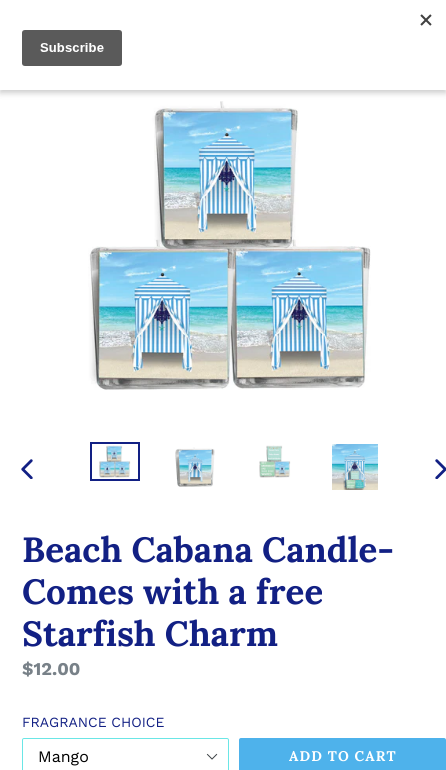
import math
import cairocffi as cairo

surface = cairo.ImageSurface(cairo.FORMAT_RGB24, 446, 770)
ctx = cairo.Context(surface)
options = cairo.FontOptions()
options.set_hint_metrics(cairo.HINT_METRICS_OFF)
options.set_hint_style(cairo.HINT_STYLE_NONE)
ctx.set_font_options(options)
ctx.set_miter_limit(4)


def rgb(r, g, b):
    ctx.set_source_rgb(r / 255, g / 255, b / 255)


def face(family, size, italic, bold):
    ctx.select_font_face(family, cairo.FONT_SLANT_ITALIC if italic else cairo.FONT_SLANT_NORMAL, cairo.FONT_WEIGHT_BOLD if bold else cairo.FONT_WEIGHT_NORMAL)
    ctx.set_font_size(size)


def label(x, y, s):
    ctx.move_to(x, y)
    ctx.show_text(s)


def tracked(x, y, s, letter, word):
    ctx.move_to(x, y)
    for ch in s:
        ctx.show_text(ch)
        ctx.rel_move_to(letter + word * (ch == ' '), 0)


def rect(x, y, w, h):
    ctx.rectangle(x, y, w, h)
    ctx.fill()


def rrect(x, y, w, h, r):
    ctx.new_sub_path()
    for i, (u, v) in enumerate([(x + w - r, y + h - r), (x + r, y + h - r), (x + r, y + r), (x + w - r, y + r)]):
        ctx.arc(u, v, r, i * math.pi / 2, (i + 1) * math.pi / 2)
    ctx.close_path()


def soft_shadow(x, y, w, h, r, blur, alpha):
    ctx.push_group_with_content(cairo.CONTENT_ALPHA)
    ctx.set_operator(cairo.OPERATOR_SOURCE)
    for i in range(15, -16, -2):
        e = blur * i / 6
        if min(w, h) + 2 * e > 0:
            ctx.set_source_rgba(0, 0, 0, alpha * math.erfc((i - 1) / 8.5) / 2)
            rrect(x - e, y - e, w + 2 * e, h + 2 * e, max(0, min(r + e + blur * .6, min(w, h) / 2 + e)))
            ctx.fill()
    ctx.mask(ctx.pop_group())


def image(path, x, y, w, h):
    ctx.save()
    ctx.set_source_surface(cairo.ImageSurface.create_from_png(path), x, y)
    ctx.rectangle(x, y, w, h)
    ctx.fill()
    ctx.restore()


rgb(255, 255, 255)
ctx.paint()
image('image1.png', 88, 101, 283, 289)
rgb(0, 0, 0)
soft_shadow(0, 3, 446, 90, 0, 3, 0.2)
rgb(255, 255, 255)
rect(0, 0, 446, 90)
image('image0.png', 22, 14, 410, 52)
image('image2.png', 21, 459, 12, 20)
ctx.rectangle(91, 443, 48, 37)
rgb(18, 32, 132)
ctx.stroke()
image('image3.png', 99, 445, 32, 33)
image('image4.png', 175, 447, 40, 40)
image('image5.png', 259, 445, 32, 33)
image('image6.png', 332, 444, 46, 46)
image('image7.png', 435, 459, 11, 20)
face('Lora', 35, 0, 1)
label(22, 562, 'Beach Cabana Candle-')
label(22, 604, 'Comes with a free')
label(22, 646, 'Starfish Charm')
face('Work Sans', 18, 0, 1)
rgb(120, 129, 136)
label(22, 675, '$12.00')
face('Work Sans', 14, 0, 0)
rgb(18, 32, 132)
label(22, 727, 'FRAGRANCE CHOICE')
image('image8.png', 206, 753, 12, 7)
rrect(22.5, 738.5, 206, 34, 1.5)
rgb(106, 230, 230)
ctx.set_line_width(1)
ctx.stroke()
face('Work Sans', 16, 0, 0)
rgb(0, 0, 0)
label(38, 762, 'Mango')
rgb(78, 178, 235)
rrect(239, 738, 207, 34, 2)
ctx.fill()
face('Lora', 14, 0, 1)
rgb(255, 255, 255)
tracked(289, 761, 'ADD TO CART', 1.1, 0)
surface.write_to_png('render.png')
